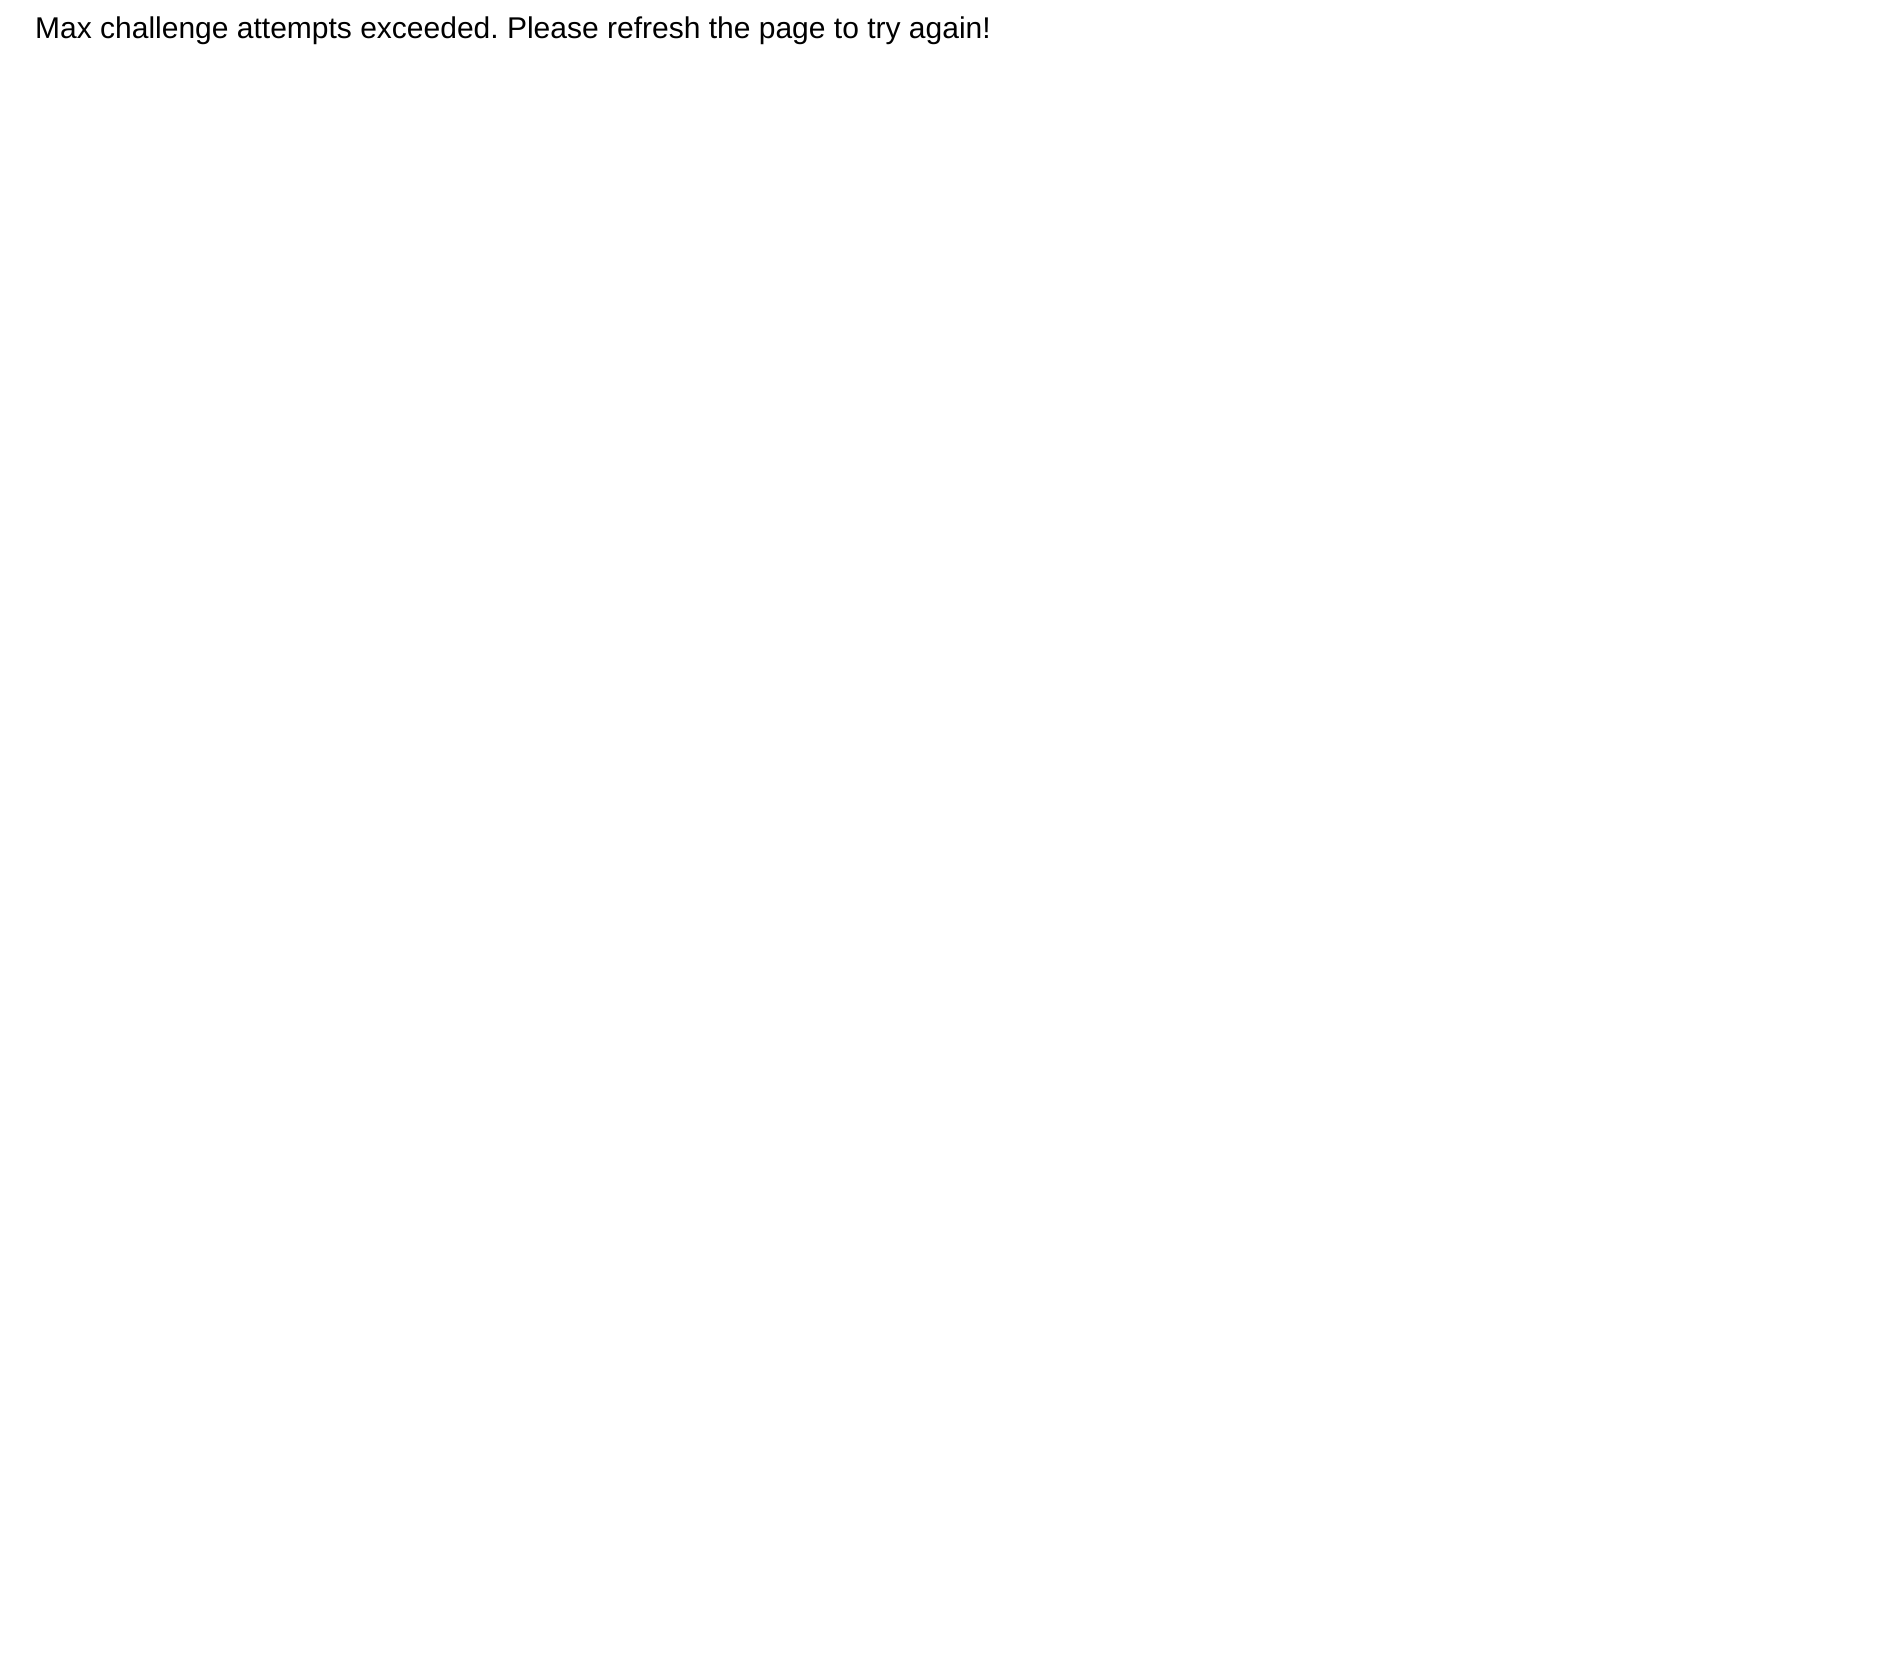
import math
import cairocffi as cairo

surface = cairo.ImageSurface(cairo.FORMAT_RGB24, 1891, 1667)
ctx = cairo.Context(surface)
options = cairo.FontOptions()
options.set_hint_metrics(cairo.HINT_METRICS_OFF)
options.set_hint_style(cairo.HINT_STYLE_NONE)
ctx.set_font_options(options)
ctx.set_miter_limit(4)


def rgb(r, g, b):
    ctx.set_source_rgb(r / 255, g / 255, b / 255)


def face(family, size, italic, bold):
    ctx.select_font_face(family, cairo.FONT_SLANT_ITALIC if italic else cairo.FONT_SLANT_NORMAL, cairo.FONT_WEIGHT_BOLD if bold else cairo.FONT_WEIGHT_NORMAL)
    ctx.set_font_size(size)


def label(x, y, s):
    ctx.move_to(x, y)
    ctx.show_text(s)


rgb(255, 255, 255)
ctx.paint()
face('Liberation Sans', 30, 0, 0)
rgb(0, 0, 0)
label(35, 38, 'Max challenge attempts exceeded. Please refresh the page to try again!')
surface.write_to_png('render.png')
